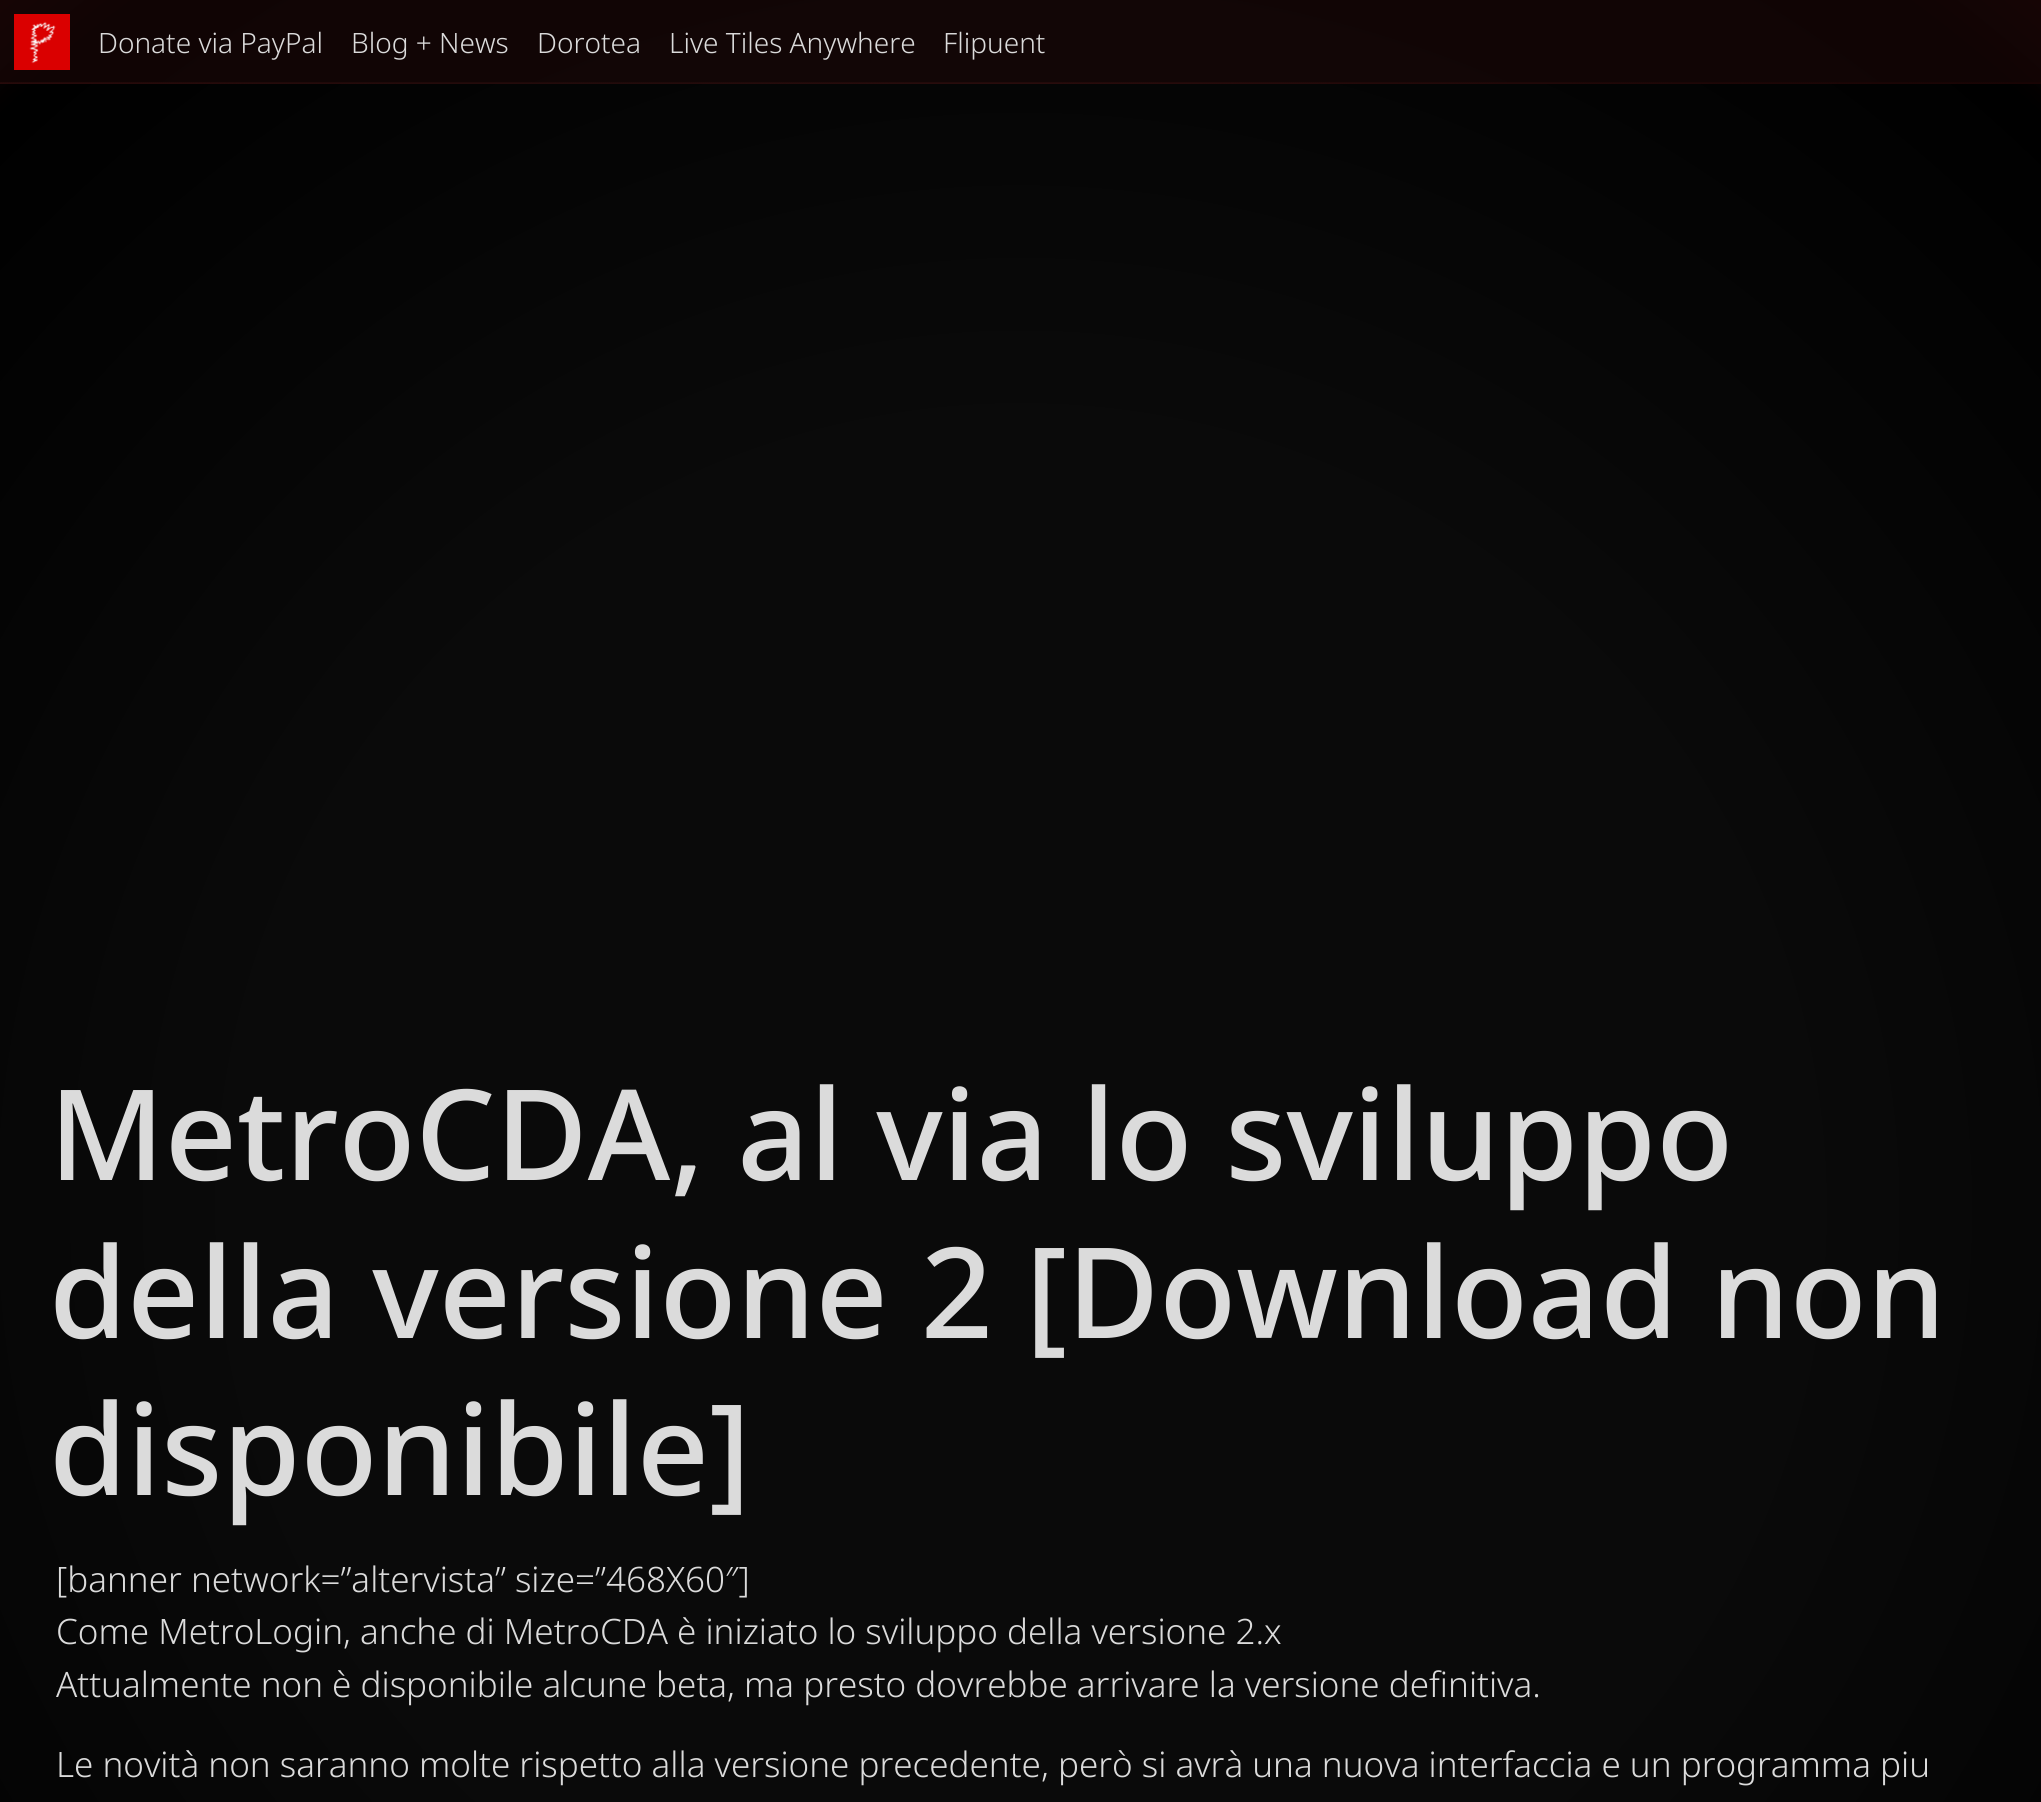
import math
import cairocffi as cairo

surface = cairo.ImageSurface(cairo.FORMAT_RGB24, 2041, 1802)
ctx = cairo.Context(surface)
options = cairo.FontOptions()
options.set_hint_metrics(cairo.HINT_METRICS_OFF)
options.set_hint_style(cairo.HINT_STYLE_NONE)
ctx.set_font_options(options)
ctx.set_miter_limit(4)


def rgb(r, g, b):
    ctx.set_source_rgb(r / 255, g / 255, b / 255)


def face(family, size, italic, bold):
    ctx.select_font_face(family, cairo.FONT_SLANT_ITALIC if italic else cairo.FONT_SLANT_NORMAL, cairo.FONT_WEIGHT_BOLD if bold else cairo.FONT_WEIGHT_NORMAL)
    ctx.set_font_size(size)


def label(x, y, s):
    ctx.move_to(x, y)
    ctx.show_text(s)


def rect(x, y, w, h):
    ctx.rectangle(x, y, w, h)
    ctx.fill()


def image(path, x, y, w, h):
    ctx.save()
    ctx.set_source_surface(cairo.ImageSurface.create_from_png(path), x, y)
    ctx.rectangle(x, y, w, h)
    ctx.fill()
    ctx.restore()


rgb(255, 255, 255)
ctx.paint()
gradient = cairo.RadialGradient(1021, 1209, 0, 1021, 1209, 1719)
gradient.add_color_stop_rgba(0.45, 0.039, 0.039, 0.039, 1)
gradient.add_color_stop_rgba(0.87, 0, 0, 0, 1)
gradient.add_color_stop_rgba(1, 0.157, 0.024, 0.024, 1)
gradient.add_color_stop_rgba(1, 1, 0, 0, 1)
ctx.set_source(gradient)
rect(0, 84, 2041, 1718)
gradient = cairo.RadialGradient(1021, 1209, 0, 1021, 1209, 1719)
gradient.add_color_stop_rgba(0.45, 0.078, 0.031, 0.031, 1)
gradient.add_color_stop_rgba(0.87, 0.063, 0.016, 0.016, 1)
gradient.add_color_stop_rgba(1, 0.125, 0.027, 0.027, 1)
gradient.add_color_stop_rgba(1, 0.463, 0.016, 0.016, 1)
ctx.set_source(gradient)
rect(0, 0, 2041, 83)
image('image0.png', 0, 82, 2041, 2)
image('image1.png', 14, 14, 56, 56)
face('Noto Sans Light', 28, 0, 0)
rgb(219, 219, 219)
label(98, 53, 'Donate via PayPal')
label(351, 53, 'Blog + News')
label(537, 53, 'Dorotea')
label(669, 53, 'Live Tiles Anywhere')
label(943, 53, 'Flipuent')
face('Noto Sans Medium', 126, 0, 0)
label(49, 1180, 'MetroCDA, al via lo sviluppo')
label(49, 1338, 'della versione 2 [Download non')
label(49, 1495, 'disponibile]')
face('Noto Sans Light', 35, 0, 0)
label(56, 1592, '[banner network=”altervista” size=”468X60″]')
label(56, 1644, 'Come MetroLogin, anche di MetroCDA è iniziato lo sviluppo della versione 2.x')
label(56, 1697, 'Attualmente non è disponibile alcune beta, ma presto dovrebbe arrivare la versione definitiva.')
label(56, 1777, 'Le novità non saranno molte rispetto alla versione precedente, però si avrà una nuova interfaccia e un programma piu')
surface.write_to_png('render.png')
